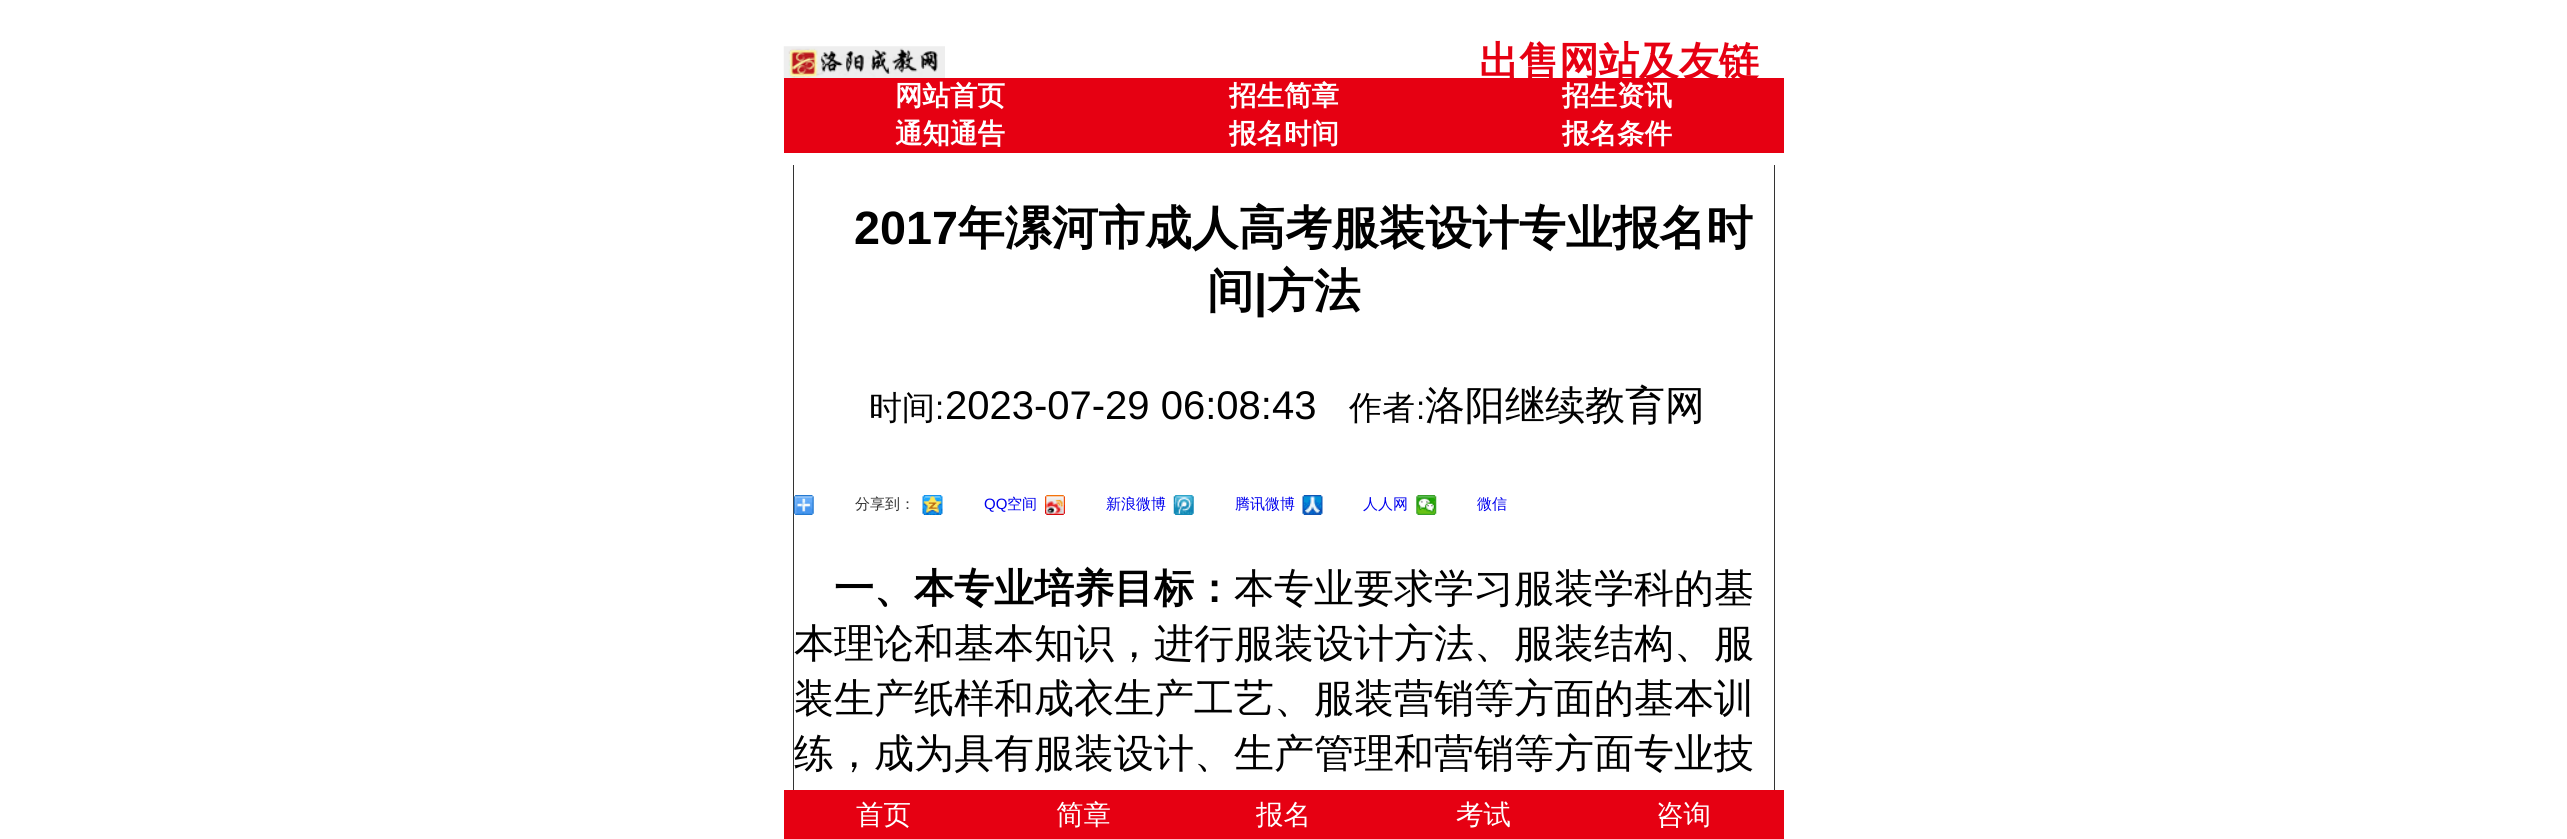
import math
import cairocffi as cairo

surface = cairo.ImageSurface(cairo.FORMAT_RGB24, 2567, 839)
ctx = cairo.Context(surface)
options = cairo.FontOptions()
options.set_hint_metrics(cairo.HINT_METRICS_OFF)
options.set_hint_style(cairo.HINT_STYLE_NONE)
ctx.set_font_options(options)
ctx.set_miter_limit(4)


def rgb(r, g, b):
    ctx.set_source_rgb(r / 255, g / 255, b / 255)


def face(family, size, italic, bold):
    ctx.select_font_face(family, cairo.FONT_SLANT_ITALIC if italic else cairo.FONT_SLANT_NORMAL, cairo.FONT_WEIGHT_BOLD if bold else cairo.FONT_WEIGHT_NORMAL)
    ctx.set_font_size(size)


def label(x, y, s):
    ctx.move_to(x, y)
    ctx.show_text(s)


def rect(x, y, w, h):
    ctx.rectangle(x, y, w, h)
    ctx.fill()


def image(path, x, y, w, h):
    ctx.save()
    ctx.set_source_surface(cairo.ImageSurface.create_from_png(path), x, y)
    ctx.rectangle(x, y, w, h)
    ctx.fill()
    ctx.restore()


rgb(255, 255, 255)
ctx.paint()
ctx.rectangle(793.5, 150.5, 981, 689)
rgb(51, 51, 51)
ctx.set_line_width(1)
ctx.stroke()
rgb(255, 255, 255)
rect(793, 150, 982, 15)
image('image0.png', 783, 46, 162, 33)
face('WenQuanYi Zen Hei', 40, 0, 1)
rgb(230, 0, 18)
label(1479, 75, '出售网站及友链')
rect(784, 78, 1000, 75)
face('WenQuanYi Zen Hei', 27.5, 0, 1)
rgb(255, 255, 255)
label(895, 105, '网站首页')
label(1229, 105, '招生简章')
label(1562, 105, '招生资讯')
label(895, 143, '通知通告')
label(1229, 143, '报名时间')
label(1562, 143, '报名条件')
face('Liberation Sans', 46.75, 0, 1)
rgb(0, 0, 0)
label(854, 244, '2017')
face('WenQuanYi Zen Hei', 46.75, 0, 1)
label(958, 244, '年漯河市成人高考服装设计专业报名时')
label(1207, 307, '间')
face('Liberation Sans', 46.75, 0, 1)
label(1254, 307, '|')
face('WenQuanYi Zen Hei', 46.75, 0, 1)
label(1267, 307, '方法')
face('WenQuanYi Zen Hei Medium', 33, 0, 0)
label(869, 419, '时间')
face('Liberation Sans', 33, 0, 0)
label(935, 419, ':')
face('Liberation Sans', 40, 0, 0)
label(945, 419, '2023-07-29 06:08:43')
face('WenQuanYi Zen Hei Medium', 33, 0, 0)
label(1349, 419, '作者')
face('Liberation Sans', 33, 0, 0)
label(1416, 419, ':')
face('WenQuanYi Zen Hei Medium', 40, 0, 0)
label(1425, 419, '洛阳继续教育网')
image('image1.png', 793, 495, 21, 20)
face('WenQuanYi Zen Hei Medium', 15, 0, 0)
rgb(51, 51, 51)
label(855, 509, '分享到：')
image('image2.png', 922, 495, 21, 20)
face('Liberation Sans', 15, 0, 0)
rgb(0, 0, 238)
label(984, 509, 'QQ')
face('WenQuanYi Zen Hei Medium', 15, 0, 0)
label(1007, 509, '空间')
image('image3.png', 1045, 495, 20, 20)
label(1106, 509, '新浪微博')
image('image4.png', 1173, 495, 21, 20)
label(1235, 509, '腾讯微博')
image('image5.png', 1302, 495, 21, 20)
label(1363, 509, '人人网')
image('image6.png', 1416, 495, 21, 20)
label(1477, 509, '微信')
face('WenQuanYi Zen Hei', 40, 0, 1)
rgb(0, 0, 0)
label(834, 602, '一、本专业培养目标：')
face('WenQuanYi Zen Hei Medium', 40, 0, 0)
label(1234, 602, '本专业要求学习服装学科的基')
label(794, 657, '本理论和基本知识，进行服装设计方法、服装结构、服')
label(794, 712, '装生产纸样和成衣生产工艺、服装营销等方面的基本训')
label(794, 767, '练，成为具有服装设计、生产管理和营销等方面专业技')
rgb(230, 0, 18)
rect(784, 790, 1000, 49)
face('WenQuanYi Zen Hei Medium', 27.5, 0, 0)
rgb(255, 255, 255)
label(856, 824, '首页')
label(1056, 824, '简章')
label(1256, 824, '报名')
label(1456, 824, '考试')
label(1656, 824, '咨询')
surface.write_to_png('render.png')
